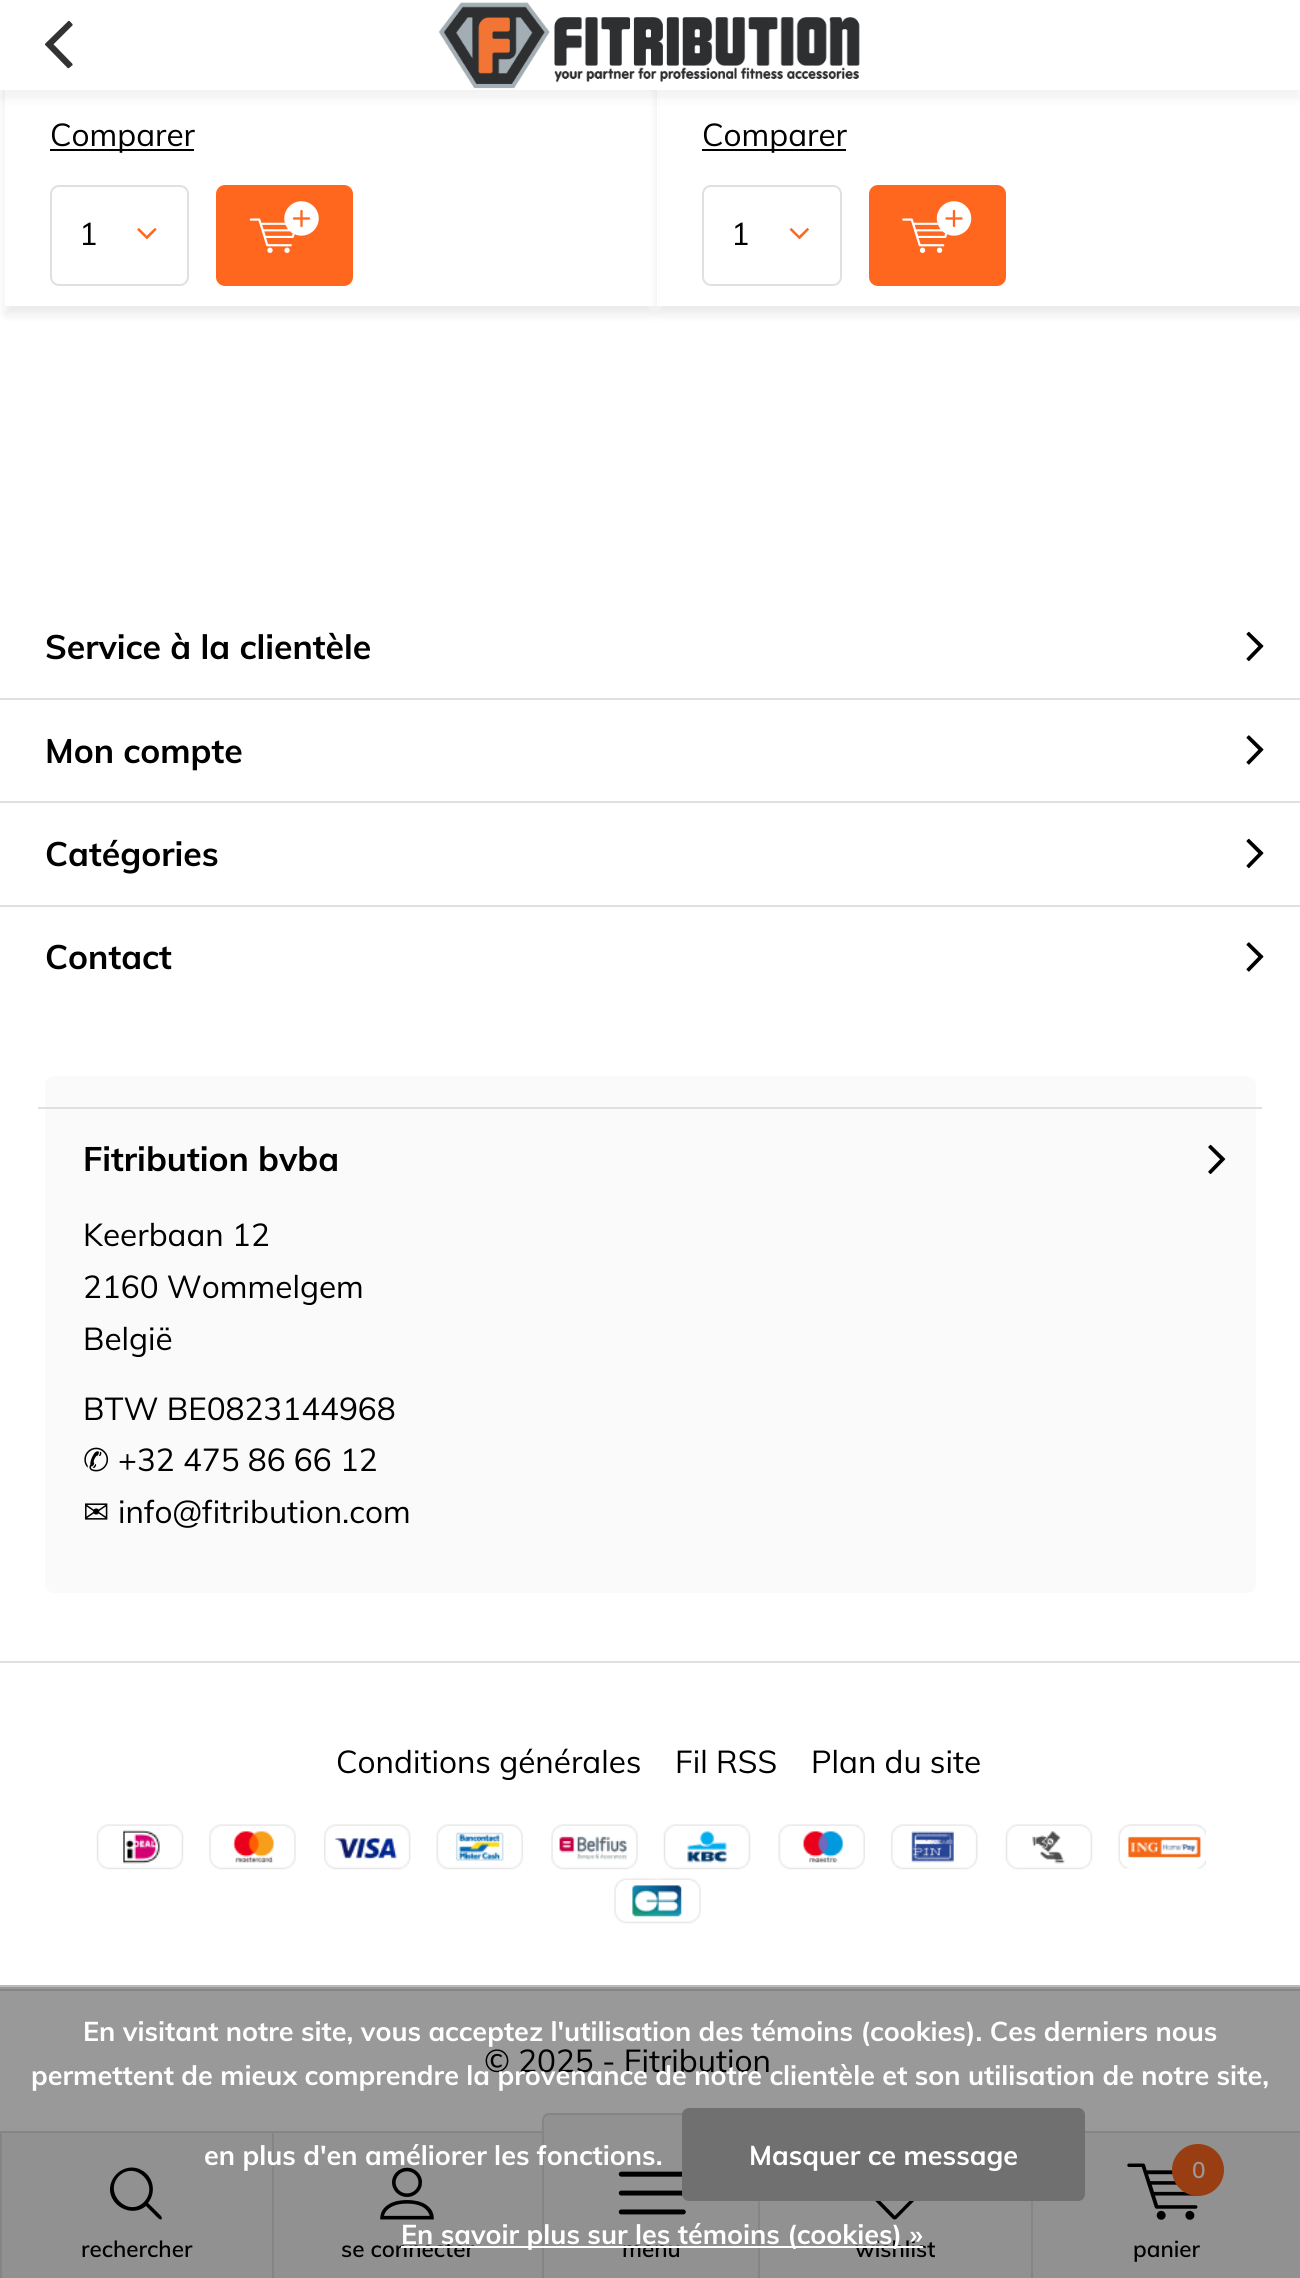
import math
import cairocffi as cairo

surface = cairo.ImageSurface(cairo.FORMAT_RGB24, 1300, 2278)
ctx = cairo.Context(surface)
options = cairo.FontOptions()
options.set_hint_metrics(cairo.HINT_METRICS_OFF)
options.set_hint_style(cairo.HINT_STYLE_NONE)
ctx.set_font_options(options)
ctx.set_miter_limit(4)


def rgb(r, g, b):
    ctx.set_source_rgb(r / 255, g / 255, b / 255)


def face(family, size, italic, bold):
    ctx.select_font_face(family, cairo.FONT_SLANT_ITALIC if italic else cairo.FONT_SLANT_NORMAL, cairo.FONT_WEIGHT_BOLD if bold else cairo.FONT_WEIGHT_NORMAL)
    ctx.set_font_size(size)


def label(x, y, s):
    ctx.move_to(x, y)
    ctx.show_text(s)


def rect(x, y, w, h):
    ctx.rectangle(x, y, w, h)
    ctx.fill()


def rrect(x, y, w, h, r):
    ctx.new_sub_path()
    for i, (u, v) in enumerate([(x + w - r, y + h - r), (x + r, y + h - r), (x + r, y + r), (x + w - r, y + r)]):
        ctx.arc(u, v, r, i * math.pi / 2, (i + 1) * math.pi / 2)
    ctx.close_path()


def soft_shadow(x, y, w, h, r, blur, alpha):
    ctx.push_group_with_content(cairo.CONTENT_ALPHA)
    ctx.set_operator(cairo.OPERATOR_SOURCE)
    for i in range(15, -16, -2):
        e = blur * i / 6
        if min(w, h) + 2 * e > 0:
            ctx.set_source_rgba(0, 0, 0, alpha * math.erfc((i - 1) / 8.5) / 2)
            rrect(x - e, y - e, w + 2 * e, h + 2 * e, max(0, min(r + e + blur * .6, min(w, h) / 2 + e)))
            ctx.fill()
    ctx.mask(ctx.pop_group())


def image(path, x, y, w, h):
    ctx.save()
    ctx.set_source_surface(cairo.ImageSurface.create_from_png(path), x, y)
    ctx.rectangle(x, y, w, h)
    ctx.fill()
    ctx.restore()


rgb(255, 255, 255)
ctx.paint()
rgb(153, 153, 153)
rect(0, 1987, 1300, 144)
ctx.save()
ctx.set_fill_rule(cairo.FILL_RULE_EVEN_ODD)
ctx.new_path()
ctx.move_to(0, 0)
ctx.line_to(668, 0)
ctx.line_to(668, 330)
ctx.line_to(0, 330)
ctx.close_path()
ctx.move_to(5, -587)
ctx.line_to(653, -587)
ctx.line_to(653, 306)
ctx.line_to(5, 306)
ctx.close_path()
ctx.clip()
rgb(0, 0, 0)
soft_shadow(5, -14, 648, 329, 0, 4.5, 0.08)
ctx.restore()
rgb(0, 0, 0)
rect(50, 149, 144, 2)
face('Muli', 31.5, 0, 0)
label(50, 146, 'Comparer')
image('image0.png', 137, 228, 20, 12)
rrect(51, 186, 137, 99, 8)
rgb(224, 224, 224)
ctx.stroke()
rgb(0, 0, 0)
label(79, 245, '1')
rgb(255, 103, 31)
rrect(217, 186, 135, 99, 8)
ctx.fill_preserve()
ctx.stroke()
image('image1.png', 249, 201, 70, 52)
rgb(255, 255, 255)
rect(653, 90, 5, 216)
ctx.save()
ctx.set_fill_rule(cairo.FILL_RULE_EVEN_ODD)
ctx.new_path()
ctx.move_to(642, 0)
ctx.line_to(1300, 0)
ctx.line_to(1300, 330)
ctx.line_to(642, 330)
ctx.close_path()
ctx.move_to(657, -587)
ctx.line_to(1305, -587)
ctx.line_to(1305, 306)
ctx.line_to(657, 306)
ctx.close_path()
ctx.clip()
rgb(0, 0, 0)
soft_shadow(657, -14, 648, 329, 0, 4.5, 0.08)
ctx.restore()
rgb(0, 0, 0)
rect(702, 149, 144, 2)
label(702, 146, 'Comparer')
image('image2.png', 789, 228, 20, 12)
rrect(703, 186, 138, 99, 8)
rgb(224, 224, 224)
ctx.stroke()
rgb(0, 0, 0)
label(731, 245, '1')
rgb(255, 103, 31)
rrect(870, 186, 135, 99, 8)
ctx.fill_preserve()
ctx.stroke()
image('image3.png', 902, 201, 70, 52)
rgb(224, 224, 224)
rect(0, 1661, 1300, 2)
face('Muli', 33.75, 0, 1)
rgb(0, 0, 0)
label(45, 659, 'Service à la clientèle')
image('image4.png', 1246, 631, 18, 31)
rgb(224, 224, 224)
rect(0, 698, 1300, 2)
rgb(0, 0, 0)
label(45, 763, 'Mon compte')
image('image5.png', 1246, 735, 18, 30)
rgb(224, 224, 224)
rect(0, 801, 1300, 2)
rgb(0, 0, 0)
label(45, 866, 'Catégories')
image('image4.png', 1246, 838, 18, 31)
rgb(224, 224, 224)
rect(0, 905, 1300, 2)
rgb(0, 0, 0)
label(45, 969, 'Contact')
image('image5.png', 1246, 942, 18, 30)
rgb(250, 250, 250)
rrect(45, 1076, 1211, 517, 9)
ctx.fill()
rgb(224, 224, 224)
rect(38, 1107, 1224, 2)
rgb(0, 0, 0)
label(83, 1171, 'Fitribution bvba')
image('image6.png', 1208, 1144, 18, 31)
face('Muli', 31.5, 0, 0)
label(83, 1246, 'Keerbaan 12')
label(83, 1298, '2160 Wommelgem')
label(83, 1350, 'België')
label(83, 1420, 'BTW BE0823144968')
face('DejaVu Sans', 31.5, 0, 0)
label(83, 1471, '✆')
face('Muli', 31.5, 0, 0)
label(118, 1471, '+32 475 86 66 12')
face('DejaVu Sans', 31.5, 0, 0)
label(83, 1523, '✉')
face('Muli', 31.5, 0, 0)
label(118, 1523, 'info@fitribution.com')
label(336, 1773, 'Conditions générales')
label(675, 1773, 'Fil RSS')
label(811, 1773, 'Plan du site')
image('image7.png', 96, 1824, 88, 46)
image('image8.png', 209, 1824, 87, 46)
image('image9.png', 324, 1824, 87, 46)
image('image10.png', 436, 1824, 87, 46)
image('image11.png', 551, 1824, 87, 46)
image('image12.png', 663, 1824, 88, 46)
image('image13.png', 778, 1824, 87, 46)
image('image14.png', 891, 1824, 87, 46)
image('image15.png', 1005, 1824, 88, 46)
image('image16.png', 1118, 1824, 88, 45)
image('image17.png', 614, 1878, 87, 46)
rgb(134, 134, 134)
rect(0, 1989, 1300, 2)
rgb(0, 0, 0)
label(484, 2072, '© 2025 - Fitribution')
rgb(187, 187, 187)
rect(0, 1985, 1300, 2)
face('Muli', 27, 0, 1)
rgb(255, 255, 255)
label(83, 2041, 'En visitant notre site, vous acceptez l\'utilisation des témoins (cookies). Ces derniers nous')
label(31, 2085, 'permettent de mieux comprendre la provenance de notre clientèle et son utilisation de notre site,')
rgb(145, 145, 145)
rect(2, 2133, 1298, 145)
rgb(133, 133, 133)
rect(0, 2131, 542, 2)
rect(272, 2131, 2, 147)
image('image20.png', 380, 2167, 54, 53)
rect(542, 2131, 2, 147)
rgb(255, 255, 255)
label(204, 2165, 'en plus d\'en améliorer les fonctions.')
rgb(145, 145, 145)
ctx.new_path()
ctx.move_to(549, 2113)
ctx.line_to(754, 2113)
ctx.curve_to(758, 2113, 761, 2116, 761, 2120)
ctx.line_to(761, 2133)
ctx.line_to(542, 2133)
ctx.line_to(542, 2120)
ctx.curve_to(542, 2116, 545, 2113, 549, 2113)
ctx.close_path()
ctx.fill()
rgb(133, 133, 133)
ctx.set_fill_rule(cairo.FILL_RULE_EVEN_ODD)
ctx.new_path()
ctx.move_to(549, 2113)
ctx.line_to(754, 2113)
ctx.curve_to(757, 2113, 760, 2116, 760, 2120)
ctx.line_to(760, 2133)
ctx.line_to(542, 2133)
ctx.curve_to(542, 2127, 540, 2113, 549, 2113)
ctx.close_path()
ctx.move_to(549, 2115)
ctx.line_to(754, 2115)
ctx.curve_to(756, 2115, 758, 2117, 758, 2120)
ctx.line_to(758, 2133)
ctx.line_to(544, 2133)
ctx.line_to(544, 2120)
ctx.curve_to(544, 2117, 547, 2115, 549, 2115)
ctx.close_path()
ctx.fill()
image('image21.png', 618, 2171, 68, 44)
rgb(112, 112, 112)
rrect(682, 2108, 403, 93, 7)
ctx.fill()
rgb(255, 255, 255)
label(749, 2165, 'Masquer ce message')
face('Muli SemiBold', 22.5, 0, 0)
rgb(0, 0, 0)
label(341, 2257, 'se connecter')
label(622, 2257, 'menu')
rgb(133, 133, 133)
rect(758, 2201, 2, 77)
rgb(0, 0, 0)
label(855, 2257, 'wishlist')
rgb(255, 255, 255)
rect(401, 2246, 522, 2)
face('Muli', 27, 0, 1)
label(401, 2244, 'En savoir plus sur les témoins (cookies) »')
rgb(0, 0, 0)
soft_shadow(0, 9, 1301, 90, 0, 4.5, 0.05)
rgb(255, 255, 255)
rect(0, 0, 1300, 90)
image('image18.png', 45, 21, 28, 48)
image('image19.png', 439, 2, 421, 87)
rgb(133, 133, 133)
rect(0, 2131, 2, 147)
rgb(0, 0, 0)
ctx.set_fill_rule(cairo.FILL_RULE_WINDING)
ctx.new_path()
ctx.move_to(161, 2216)
ctx.line_to(148, 2203)
ctx.curve_to(156, 2193, 154, 2178, 143, 2171)
ctx.curve_to(128, 2161, 109, 2174, 110, 2191)
ctx.curve_to(112, 2208, 133, 2217, 146, 2206)
ctx.line_to(154, 2214)
ctx.curve_to(157, 2217, 161, 2222, 162, 2218)
ctx.close_path()
ctx.move_to(144, 2202)
ctx.curve_to(128, 2218, 103, 2193, 119, 2176)
ctx.curve_to(136, 2160, 160, 2185, 144, 2202)
ctx.close_path()
ctx.fill()
face('Muli SemiBold', 22.5, 0, 0)
label(81, 2257, 'rechercher')
image('image22.png', 875, 2201, 39, 19)
rgb(133, 133, 133)
rect(1085, 2131, 215, 2)
rect(1031, 2201, 2, 77)
image('image23.png', 1127, 2163, 74, 57)
rgb(153, 62, 19)
ctx.arc(1198, 2170, 26, 0, 2 * math.pi)
ctx.fill()
rgb(153, 153, 153)
label(1192, 2178, '0')
rgb(0, 0, 0)
label(1133, 2257, 'panier')
surface.write_to_png('render.png')
